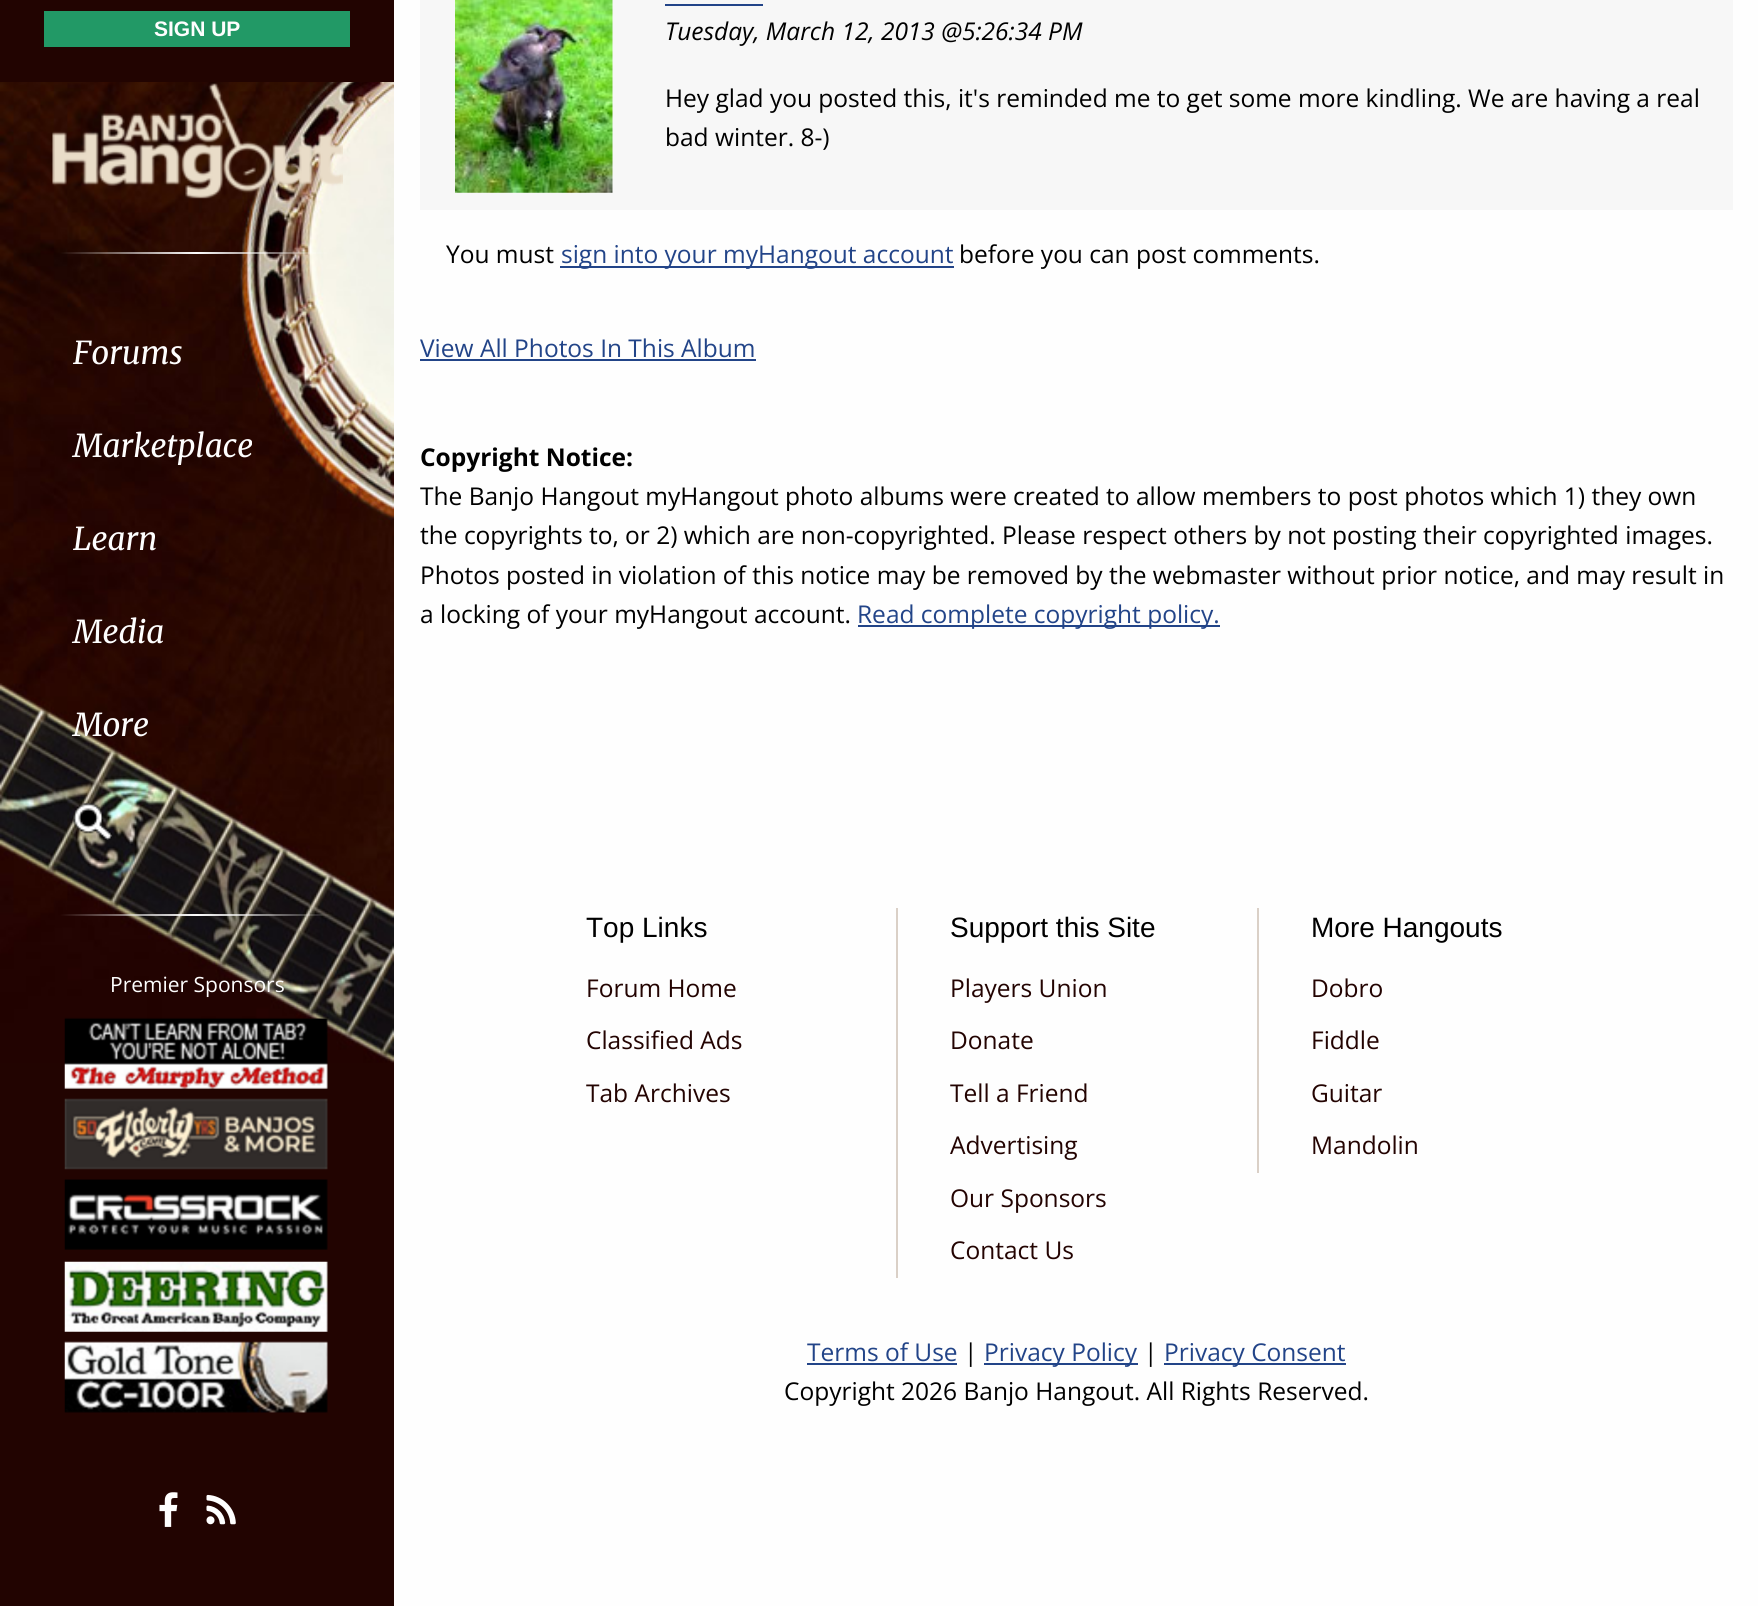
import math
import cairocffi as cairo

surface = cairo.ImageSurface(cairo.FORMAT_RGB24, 1758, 1606)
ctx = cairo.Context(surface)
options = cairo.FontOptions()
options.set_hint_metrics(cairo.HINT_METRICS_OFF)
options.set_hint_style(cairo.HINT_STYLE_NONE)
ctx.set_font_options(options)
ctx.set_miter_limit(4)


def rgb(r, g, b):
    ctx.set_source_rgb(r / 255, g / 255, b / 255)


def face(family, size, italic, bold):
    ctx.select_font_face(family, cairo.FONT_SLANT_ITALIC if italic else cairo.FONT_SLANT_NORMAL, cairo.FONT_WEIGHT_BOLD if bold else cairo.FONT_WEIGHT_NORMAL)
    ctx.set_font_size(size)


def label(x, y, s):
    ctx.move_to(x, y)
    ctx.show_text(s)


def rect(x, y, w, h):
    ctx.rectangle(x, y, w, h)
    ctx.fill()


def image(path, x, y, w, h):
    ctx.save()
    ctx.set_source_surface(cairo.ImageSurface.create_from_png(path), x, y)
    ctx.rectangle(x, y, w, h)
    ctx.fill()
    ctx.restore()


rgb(254, 254, 254)
ctx.paint()
rgb(34, 4, 1)
rect(0, 1063, 394, 543)
image('image0.png', 0, 82, 394, 981)
rect(0, 0, 394, 82)
rgb(34, 153, 102)
rect(44, 11, 306, 36)
face('Liberation Sans', 21, 0, 1)
rgb(254, 254, 254)
label(154, 36, 'SIGN UP')
image('image1.png', 52, 83, 291, 116)
face('Merriweather', 31.5, 1, 0)
label(73, 364, 'Forums')
label(73, 457, 'Marketplace')
label(73, 550, 'Learn')
label(73, 643, 'Media')
label(73, 736, 'More')
image('image2.png', 73, 802, 39, 38)
face('Open Sans', 21, 0, 0)
label(110, 992, 'Premier Sponsors')
image('image3.png', 64, 1017, 264, 72)
image('image4.png', 64, 1098, 264, 72)
image('image5.png', 64, 1179, 264, 71)
image('image6.png', 64, 1261, 264, 71)
image('image7.png', 64, 1341, 264, 72)
image('image8.png', 159, 1492, 19, 35)
image('image9.png', 206, 1494, 30, 31)
rgb(247, 247, 247)
rect(420, 0, 1313, 210)
image('image10.png', 455, 0, 158, 193)
rgb(34, 68, 136)
rect(665, 4, 98, 2)
face('Open Sans', 24.5, 1, 0)
rgb(0, 0, 0)
label(665, 40, 'Tuesday, March 12, 2013 @5:26:34 PM')
face('Open Sans', 24.5, 0, 0)
label(665, 107, 'Hey glad you posted this, it\'s reminded me to get some more kindling. We are having a real')
label(665, 146, 'bad winter. 8-)')
label(446, 263, 'You must')
rgb(34, 68, 136)
rect(560, 266, 394, 2)
label(561, 263, 'sign into your myHangout account')
rgb(0, 0, 0)
label(959, 263, 'before you can post comments.')
rgb(34, 68, 136)
label(420, 357, 'View All Photos In This Album')
rect(420, 359, 336, 2)
face('Open Sans', 24.5, 0, 1)
rgb(0, 0, 0)
label(420, 466, 'Copyright Notice:')
face('Open Sans', 24.5, 0, 0)
label(420, 505, 'The Banjo Hangout myHangout photo albums were created to allow members to post photos which 1) they own')
label(420, 544, 'the copyrights to, or 2) which are non-copyrighted. Please respect others by not posting their copyrighted images.')
label(420, 584, 'Photos posted in violation of this notice may be removed by the webmaster without prior notice, and may result in')
label(420, 623, 'a locking of your myHangout account.')
rgb(34, 68, 136)
rect(858, 625, 362, 2)
label(857, 623, 'Read complete copyright policy.')
face('Liberation Sans', 28, 0, 0)
rgb(0, 0, 0)
label(586, 937, 'Top Links')
face('Open Sans', 24.5, 0, 0)
rgb(35, 3, 1)
label(586, 997, 'Forum Home')
label(586, 1049, 'Classified Ads')
label(586, 1102, 'Tab Archives')
rgb(218, 208, 199)
rect(896, 908, 2, 370)
face('Liberation Sans', 28, 0, 0)
rgb(0, 0, 0)
label(950, 937, 'Support this Site')
face('Open Sans', 24.5, 0, 0)
rgb(35, 3, 1)
label(950, 997, 'Players Union')
label(950, 1049, 'Donate')
label(950, 1102, 'Tell a Friend')
label(950, 1154, 'Advertising')
label(950, 1207, 'Our Sponsors')
label(950, 1259, 'Contact Us')
rgb(218, 208, 199)
rect(1257, 908, 2, 265)
face('Liberation Sans', 28, 0, 0)
rgb(0, 0, 0)
label(1311, 937, 'More Hangouts')
face('Open Sans', 24.5, 0, 0)
rgb(35, 3, 1)
label(1311, 997, 'Dobro')
label(1311, 1049, 'Fiddle')
label(1311, 1102, 'Guitar')
label(1311, 1154, 'Mandolin')
rgb(34, 68, 136)
label(807, 1361, 'Terms of Use')
rect(807, 1363, 150, 2)
rgb(0, 0, 0)
label(964, 1361, '|')
rgb(34, 68, 136)
rect(984, 1363, 154, 2)
label(984, 1361, 'Privacy Policy')
rgb(0, 0, 0)
label(1144, 1361, '|')
rgb(34, 68, 136)
rect(1164, 1363, 182, 2)
label(1164, 1361, 'Privacy Consent')
rgb(0, 0, 0)
label(784, 1400, 'Copyright 2026 Banjo Hangout. All Rights Reserved.')
surface.write_to_png('render.png')
